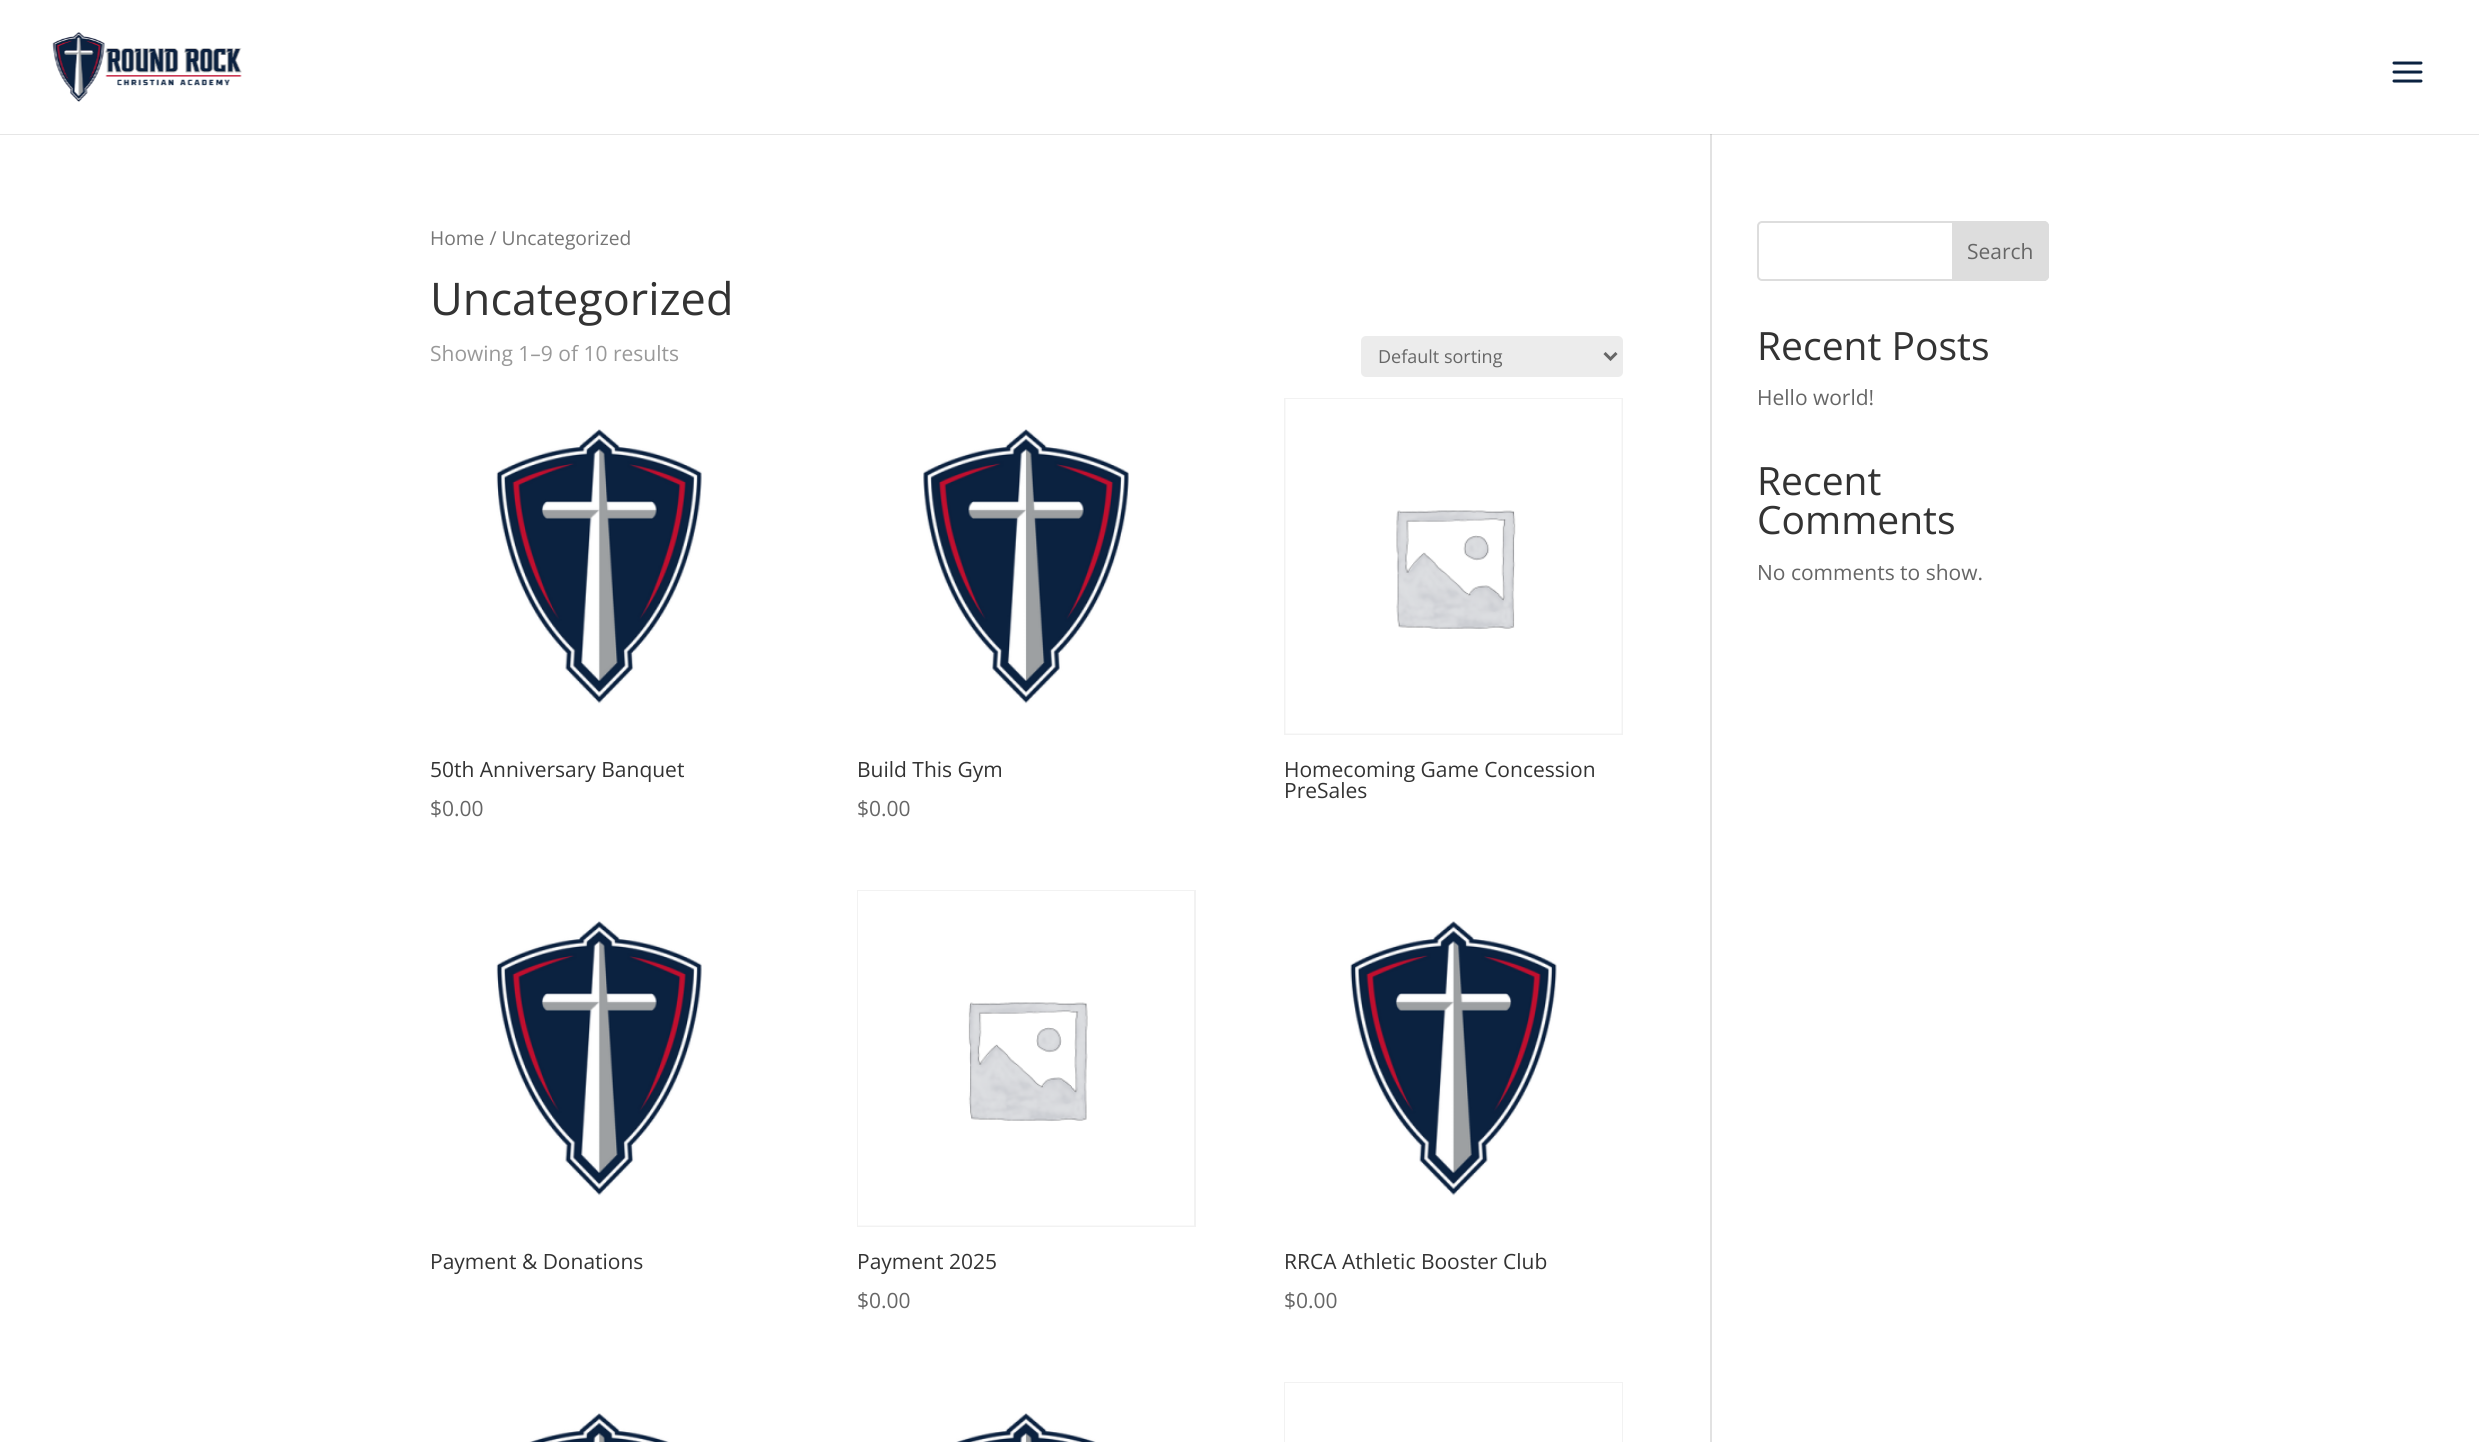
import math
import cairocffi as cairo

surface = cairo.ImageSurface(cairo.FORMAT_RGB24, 2479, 1442)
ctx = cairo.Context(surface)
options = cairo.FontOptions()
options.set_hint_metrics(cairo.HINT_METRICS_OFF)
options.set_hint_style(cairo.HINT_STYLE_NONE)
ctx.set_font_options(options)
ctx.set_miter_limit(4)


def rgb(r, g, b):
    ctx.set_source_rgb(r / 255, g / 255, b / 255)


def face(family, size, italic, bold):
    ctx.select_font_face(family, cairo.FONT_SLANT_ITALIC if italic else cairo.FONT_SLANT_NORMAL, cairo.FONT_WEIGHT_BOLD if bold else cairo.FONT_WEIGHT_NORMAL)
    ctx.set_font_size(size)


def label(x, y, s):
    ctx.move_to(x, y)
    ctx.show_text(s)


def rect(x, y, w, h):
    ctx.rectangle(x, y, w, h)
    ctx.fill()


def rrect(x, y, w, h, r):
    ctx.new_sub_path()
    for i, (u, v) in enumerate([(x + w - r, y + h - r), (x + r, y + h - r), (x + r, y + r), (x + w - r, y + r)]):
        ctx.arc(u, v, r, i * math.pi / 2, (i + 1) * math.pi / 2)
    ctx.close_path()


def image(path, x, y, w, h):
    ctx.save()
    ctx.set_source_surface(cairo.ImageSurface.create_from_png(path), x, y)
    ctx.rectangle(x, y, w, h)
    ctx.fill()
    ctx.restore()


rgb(255, 255, 255)
ctx.paint()
rgb(226, 226, 226)
rect(1710, 134, 2, 1308)
ctx.set_source_rgba(0, 0, 0, 0.1)
ctx.new_path()
ctx.move_to(0, 134)
ctx.line_to(0, 135)
ctx.line_to(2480, 135)
ctx.line_to(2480, 2)
ctx.line_to(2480, 134)
ctx.close_path()
ctx.fill()
image('image0.png', 52, 32, 190, 70)
image('image1.png', 2392, 61, 31, 22)
face('Open Sans', 19.25, 0, 0)
rgb(118, 118, 118)
label(430, 245, 'Home / Uncategorized')
face('Open Sans', 45, 0, 0)
rgb(51, 51, 51)
label(430, 315, 'Uncategorized')
face('Open Sans', 21, 0, 0)
rgb(153, 153, 153)
label(430, 361, 'Showing 1–9 of 10 results')
rgb(236, 236, 236)
rrect(1361, 336, 262, 41, 5)
ctx.fill()
ctx.new_path()
ctx.move_to(1604.5, 353)
ctx.line_to(1610.5, 359)
ctx.line_to(1616.5, 353)
rgb(102, 102, 102)
ctx.set_line_width(3)
ctx.stroke()
face('Open Sans', 18, 0, 0)
label(1378, 363, 'Default sorting')
image('image2.png', 496, 429, 206, 275)
face('Open Sans', 21, 0, 0)
rgb(51, 51, 51)
label(430, 777, '50th Anniversary Banquet')
rgb(102, 102, 102)
label(430, 816, '$0.00')
image('image3.png', 923, 429, 206, 275)
rgb(51, 51, 51)
label(857, 777, 'Build This Gym')
rgb(102, 102, 102)
label(857, 816, '$0.00')
ctx.rectangle(1285, 399, 337, 335)
rgb(242, 242, 242)
ctx.set_line_width(2)
ctx.stroke()
image('image4.png', 1285, 399, 337, 335)
rgb(51, 51, 51)
label(1284, 777, 'Homecoming Game Concession')
label(1284, 798, 'PreSales')
image('image5.png', 496, 921, 206, 275)
label(430, 1269, 'Payment & Donations')
ctx.rectangle(858, 891, 337, 335)
rgb(242, 242, 242)
ctx.stroke()
image('image6.png', 858, 891, 336, 335)
rgb(51, 51, 51)
label(857, 1269, 'Payment 2025')
rgb(102, 102, 102)
label(857, 1308, '$0.00')
image('image7.png', 1350, 921, 207, 275)
rgb(51, 51, 51)
label(1284, 1269, 'RRCA Athletic Booster Club')
rgb(102, 102, 102)
label(1284, 1308, '$0.00')
image('image8.png', 529, 1413, 140, 29)
image('image9.png', 956, 1413, 140, 29)
ctx.rectangle(1285, 1383, 337, 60)
rgb(242, 242, 242)
ctx.stroke()
rgb(255, 255, 255)
rect(1285, 1383, 337, 59)
rrect(1758, 222, 290, 58, 4)
rgb(221, 221, 221)
ctx.stroke()
ctx.new_path()
ctx.move_to(1953, 222)
ctx.line_to(2044, 222)
ctx.curve_to(2046, 222, 2048, 224, 2048, 226)
ctx.line_to(2048, 276)
ctx.curve_to(2048, 278, 2046, 280, 2044, 280)
ctx.line_to(1953, 280)
ctx.close_path()
ctx.fill_preserve()
ctx.stroke()
rgb(102, 102, 102)
label(1967, 259, 'Search')
face('Open Sans', 39, 0, 0)
rgb(51, 51, 51)
label(1757, 360, 'Recent Posts')
face('Open Sans', 21, 0, 0)
rgb(102, 102, 102)
label(1757, 405, 'Hello world!')
face('Open Sans', 39, 0, 0)
rgb(51, 51, 51)
label(1757, 495, 'Recent')
label(1757, 534, 'Comments')
face('Open Sans', 21, 0, 0)
rgb(102, 102, 102)
label(1757, 580, 'No comments to show.')
surface.write_to_png('render.png')
